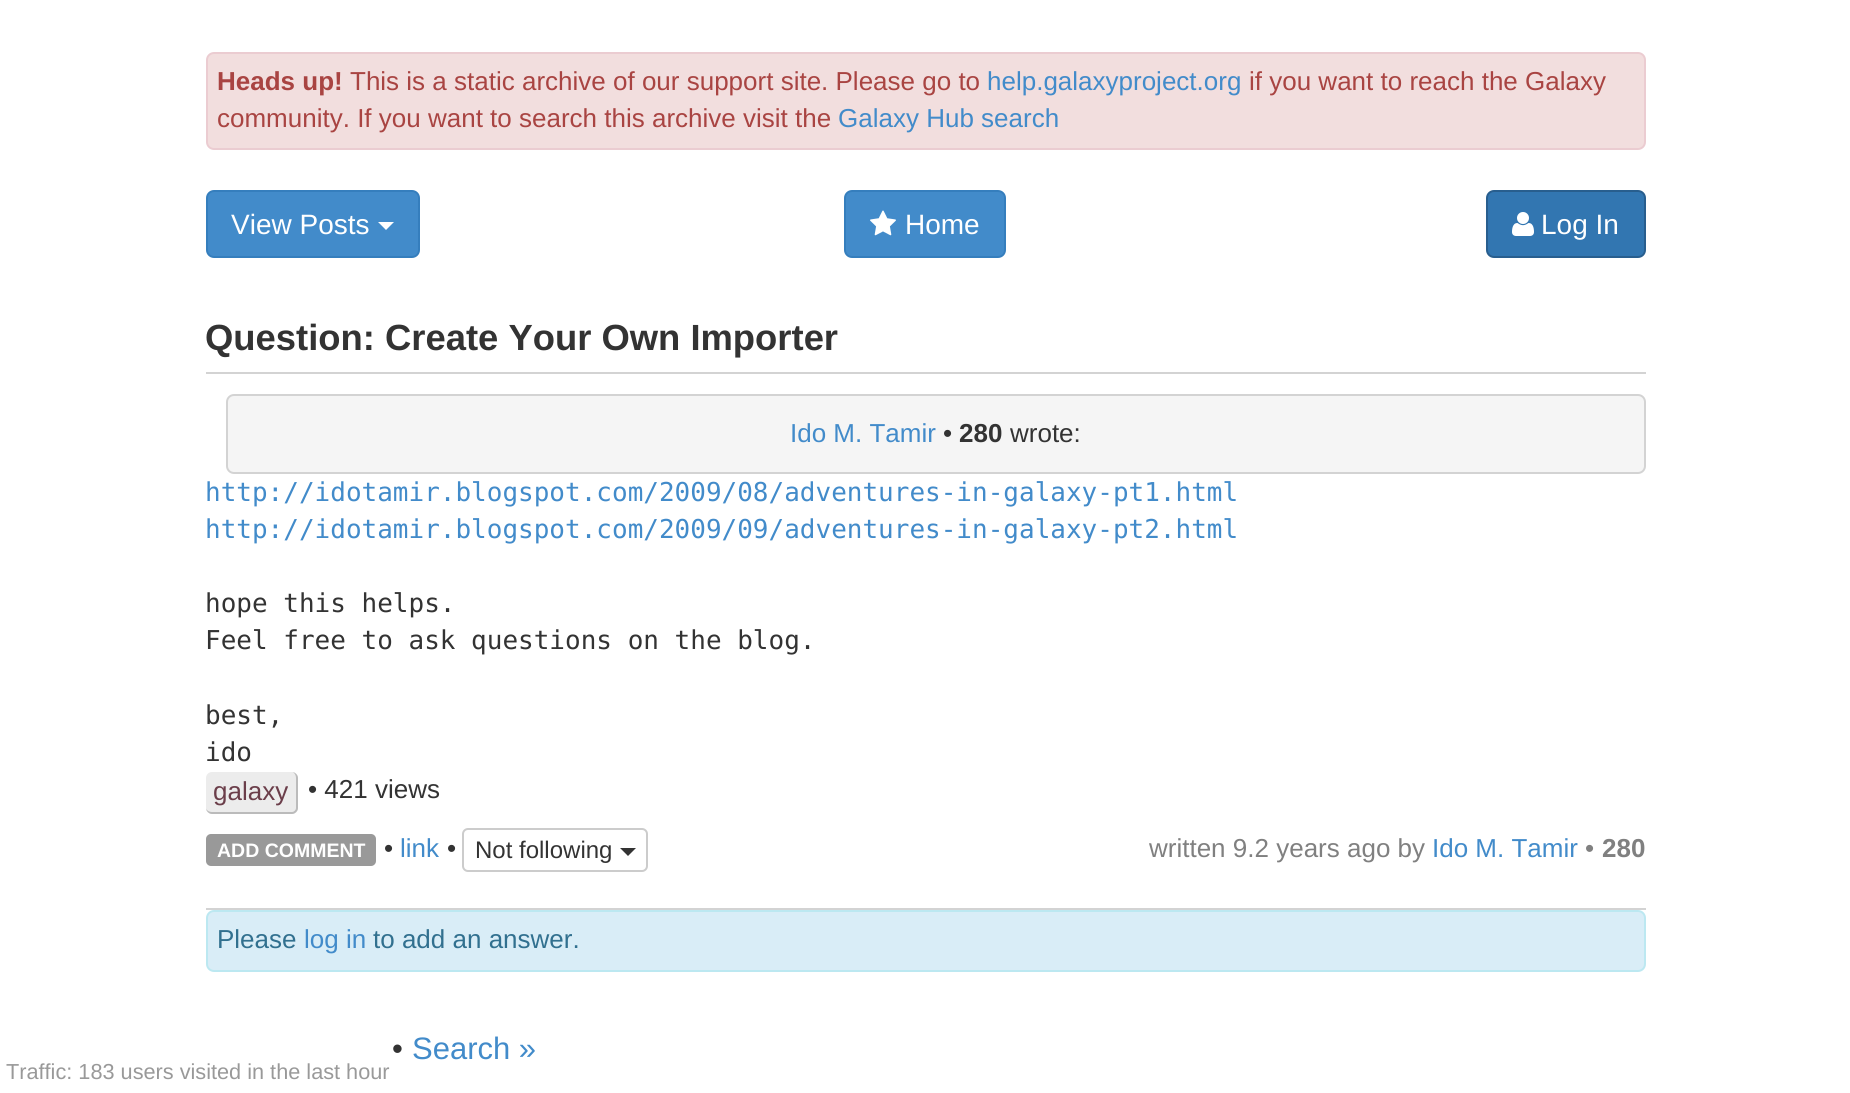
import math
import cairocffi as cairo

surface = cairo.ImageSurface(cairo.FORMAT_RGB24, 1850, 1093)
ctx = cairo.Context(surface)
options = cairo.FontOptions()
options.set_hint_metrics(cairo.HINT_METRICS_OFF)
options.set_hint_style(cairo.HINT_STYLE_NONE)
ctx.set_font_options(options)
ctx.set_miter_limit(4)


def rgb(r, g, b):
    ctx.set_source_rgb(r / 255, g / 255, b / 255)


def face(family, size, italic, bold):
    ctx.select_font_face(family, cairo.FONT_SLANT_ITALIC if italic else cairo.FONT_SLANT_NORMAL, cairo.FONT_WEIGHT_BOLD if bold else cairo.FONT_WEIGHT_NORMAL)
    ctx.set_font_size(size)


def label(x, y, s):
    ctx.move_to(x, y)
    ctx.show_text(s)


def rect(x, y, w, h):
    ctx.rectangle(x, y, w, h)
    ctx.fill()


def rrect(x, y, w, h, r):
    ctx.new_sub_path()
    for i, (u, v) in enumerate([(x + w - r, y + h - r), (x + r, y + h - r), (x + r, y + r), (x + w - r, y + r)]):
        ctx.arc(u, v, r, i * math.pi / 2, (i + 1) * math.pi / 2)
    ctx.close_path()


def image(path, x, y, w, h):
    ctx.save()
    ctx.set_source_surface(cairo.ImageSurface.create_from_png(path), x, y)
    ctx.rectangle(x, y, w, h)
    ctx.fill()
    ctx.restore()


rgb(255, 255, 255)
ctx.paint()
rgb(242, 222, 222)
rrect(207, 53, 1438, 96, 7)
ctx.fill_preserve()
rgb(235, 204, 209)
ctx.stroke()
face('Liberation Sans', 26, 0, 1)
rgb(169, 68, 66)
label(217, 90, 'Heads up!')
face('Liberation Sans', 26, 0, 0)
label(350, 90, 'This is a static archive of our support site. Please go to')
rgb(66, 139, 202)
label(987, 90, 'help.galaxyproject.org')
rgb(169, 68, 66)
label(1249, 90, 'if you want to reach the Galaxy')
label(217, 127, 'community. If you want to search this archive visit the')
rgb(66, 139, 202)
label(838, 127, 'Galaxy Hub search')
rrect(207, 191, 212, 66, 7)
ctx.fill_preserve()
rgb(53, 126, 189)
ctx.stroke()
face('Liberation Sans', 28, 0, 0)
rgb(255, 255, 255)
label(231, 234, 'View Posts')
ctx.new_path()
ctx.move_to(378, 222)
ctx.line_to(394, 222)
ctx.line_to(386, 230)
ctx.close_path()
ctx.fill()
rgb(66, 139, 202)
rrect(845, 191, 160, 66, 7)
ctx.fill_preserve()
rgb(53, 126, 189)
ctx.stroke()
image('image0.png', 870, 210, 26, 26)
rgb(255, 255, 255)
label(905, 234, 'Home')
rgb(50, 118, 177)
rrect(1487, 191, 158, 66, 7)
ctx.fill_preserve()
rgb(40, 94, 142)
ctx.stroke()
image('image1.png', 1512, 212, 22, 24)
rgb(255, 255, 255)
label(1541, 234, 'Log In')
rgb(211, 211, 211)
rect(206, 908, 1440, 2)
rect(206, 372, 1440, 2)
face('Liberation Sans', 36.4, 0, 1)
rgb(51, 51, 51)
label(205, 350, 'Question: Create Your Own Importer')
rgb(245, 245, 245)
rrect(227, 395, 1418, 78, 7)
ctx.fill_preserve()
rgb(211, 211, 211)
ctx.stroke()
face('Liberation Sans', 26, 0, 0)
rgb(66, 139, 202)
label(790, 442, 'Ido M. Tamir')
rgb(51, 51, 51)
label(943, 442, '•')
face('Liberation Sans', 26, 0, 1)
label(959, 442, '280')
face('Liberation Sans', 26, 0, 0)
label(1010, 442, 'wrote:')
face('DejaVu Sans Mono', 26, 0, 0)
rgb(66, 139, 202)
label(205, 501, 'http://idotamir.blogspot.com/2009/08/adventures-in-galaxy-pt1.html')
label(205, 538, 'http://idotamir.blogspot.com/2009/09/adventures-in-galaxy-pt2.html')
rgb(51, 51, 51)
label(205, 612, 'hope this helps.')
label(205, 649, 'Feel free to ask questions on the blog.')
label(205, 724, 'best,')
label(205, 761, 'ido')
rgb(236, 236, 236)
rrect(206, 772, 92, 42, 6)
ctx.fill()
rgb(187, 187, 187)
ctx.set_fill_rule(cairo.FILL_RULE_EVEN_ODD)
ctx.new_path()
ctx.move_to(212, 772)
ctx.line_to(292, 772)
ctx.curve_to(295, 772, 298, 775, 298, 778)
ctx.line_to(298, 808)
ctx.curve_to(298, 811, 295, 814, 292, 814)
ctx.line_to(212, 814)
ctx.curve_to(209, 814, 206, 811, 206, 808)
ctx.line_to(206, 778)
ctx.curve_to(206, 775, 209, 772, 212, 772)
ctx.close_path()
ctx.move_to(212, 772)
ctx.line_to(292, 772)
ctx.curve_to(294, 772, 296, 775, 296, 778)
ctx.line_to(296, 808)
ctx.curve_to(296, 810, 294, 812, 292, 812)
ctx.line_to(212, 812)
ctx.curve_to(209, 812, 206, 810, 206, 808)
ctx.line_to(206, 778)
ctx.curve_to(206, 775, 209, 772, 212, 772)
ctx.close_path()
ctx.fill()
face('Liberation Sans', 26, 0, 0)
rgb(107, 62, 74)
label(213, 800, 'galaxy')
rgb(51, 51, 51)
label(308, 798, '• 421 views')
rgb(153, 153, 153)
rrect(206, 834, 170, 32, 5)
ctx.fill()
face('Liberation Sans', 19.5, 0, 1)
rgb(255, 255, 255)
label(217, 857, 'ADD COMMENT')
face('Liberation Sans', 26, 0, 0)
rgb(51, 51, 51)
label(384, 857, '•')
rgb(66, 139, 202)
label(400, 857, 'link')
rgb(51, 51, 51)
label(447, 857, '•')
rrect(463, 829, 184, 42, 5)
rgb(204, 204, 204)
ctx.stroke()
face('Liberation Sans', 24, 0, 0)
rgb(51, 51, 51)
label(475, 858, 'Not following')
ctx.set_fill_rule(cairo.FILL_RULE_WINDING)
ctx.new_path()
ctx.move_to(620, 848)
ctx.line_to(636, 848)
ctx.line_to(628, 856)
ctx.close_path()
ctx.fill()
face('Liberation Sans', 26, 0, 0)
rgb(128, 128, 128)
label(1149, 857, 'written 9.2 years ago by')
rgb(66, 139, 202)
label(1432, 857, 'Ido M. Tamir')
rgb(128, 128, 128)
label(1585, 857, '•')
face('Liberation Sans', 26, 0, 1)
label(1602, 857, '280')
rgb(217, 237, 247)
rrect(207, 911, 1438, 60, 7)
ctx.fill_preserve()
rgb(188, 232, 241)
ctx.stroke()
face('Liberation Sans', 26, 0, 0)
rgb(49, 112, 143)
label(217, 948, 'Please')
rgb(66, 139, 202)
label(304, 948, 'log in')
rgb(49, 112, 143)
label(373, 948, 'to add an answer.')
face('Liberation Sans', 31, 0, 0)
rgb(51, 51, 51)
label(392, 1059, '•')
rgb(66, 139, 202)
label(412, 1059, 'Search »')
face('Liberation Sans', 21.7, 0, 0)
rgb(153, 153, 153)
label(6, 1079, 'Traffic: 183 users visited in the last hour')
surface.write_to_png('render.png')
